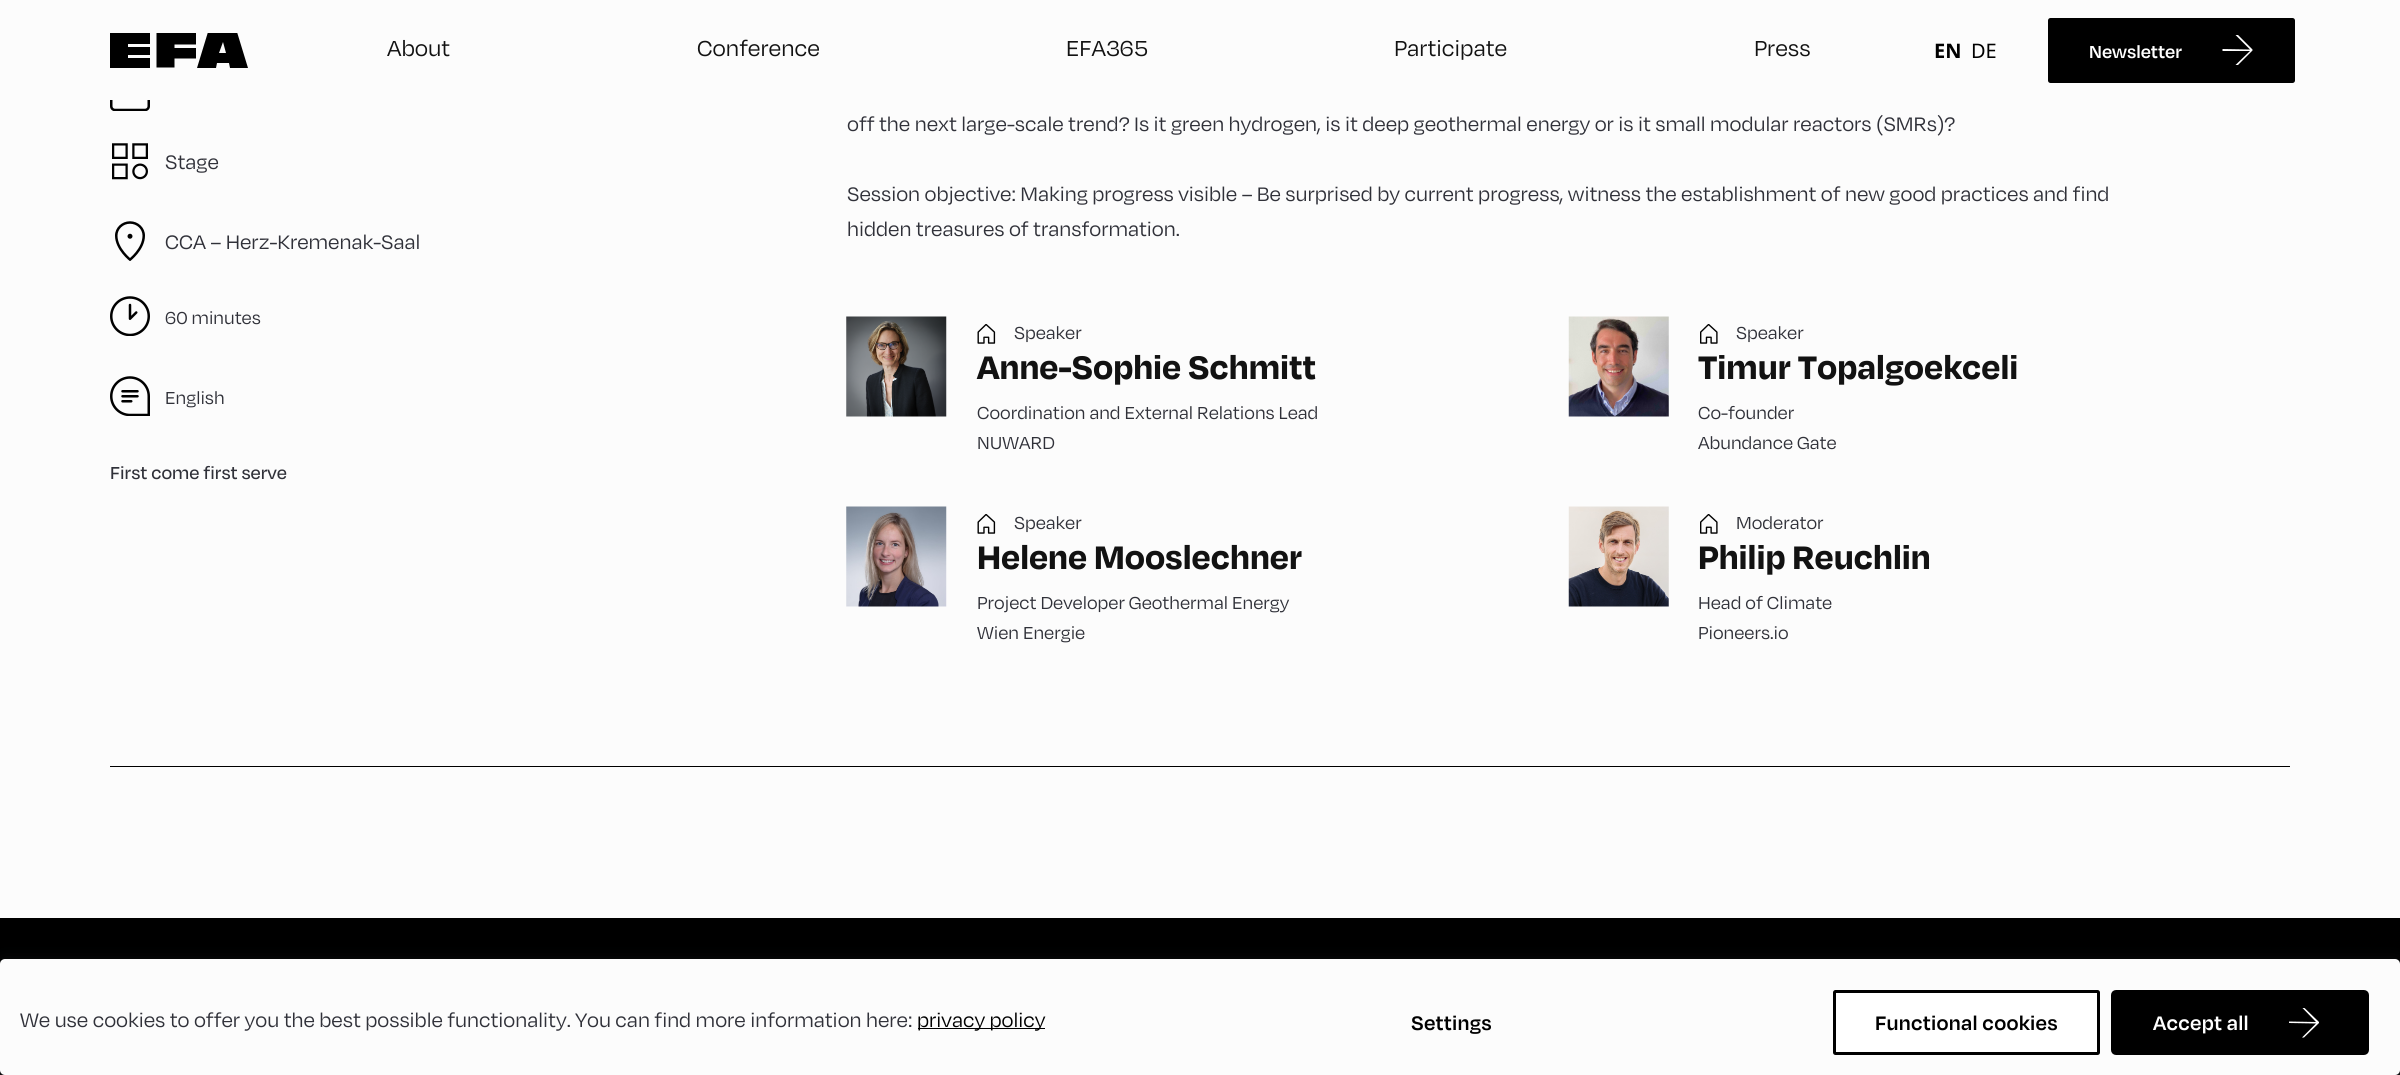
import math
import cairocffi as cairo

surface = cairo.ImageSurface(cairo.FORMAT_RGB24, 2400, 1075)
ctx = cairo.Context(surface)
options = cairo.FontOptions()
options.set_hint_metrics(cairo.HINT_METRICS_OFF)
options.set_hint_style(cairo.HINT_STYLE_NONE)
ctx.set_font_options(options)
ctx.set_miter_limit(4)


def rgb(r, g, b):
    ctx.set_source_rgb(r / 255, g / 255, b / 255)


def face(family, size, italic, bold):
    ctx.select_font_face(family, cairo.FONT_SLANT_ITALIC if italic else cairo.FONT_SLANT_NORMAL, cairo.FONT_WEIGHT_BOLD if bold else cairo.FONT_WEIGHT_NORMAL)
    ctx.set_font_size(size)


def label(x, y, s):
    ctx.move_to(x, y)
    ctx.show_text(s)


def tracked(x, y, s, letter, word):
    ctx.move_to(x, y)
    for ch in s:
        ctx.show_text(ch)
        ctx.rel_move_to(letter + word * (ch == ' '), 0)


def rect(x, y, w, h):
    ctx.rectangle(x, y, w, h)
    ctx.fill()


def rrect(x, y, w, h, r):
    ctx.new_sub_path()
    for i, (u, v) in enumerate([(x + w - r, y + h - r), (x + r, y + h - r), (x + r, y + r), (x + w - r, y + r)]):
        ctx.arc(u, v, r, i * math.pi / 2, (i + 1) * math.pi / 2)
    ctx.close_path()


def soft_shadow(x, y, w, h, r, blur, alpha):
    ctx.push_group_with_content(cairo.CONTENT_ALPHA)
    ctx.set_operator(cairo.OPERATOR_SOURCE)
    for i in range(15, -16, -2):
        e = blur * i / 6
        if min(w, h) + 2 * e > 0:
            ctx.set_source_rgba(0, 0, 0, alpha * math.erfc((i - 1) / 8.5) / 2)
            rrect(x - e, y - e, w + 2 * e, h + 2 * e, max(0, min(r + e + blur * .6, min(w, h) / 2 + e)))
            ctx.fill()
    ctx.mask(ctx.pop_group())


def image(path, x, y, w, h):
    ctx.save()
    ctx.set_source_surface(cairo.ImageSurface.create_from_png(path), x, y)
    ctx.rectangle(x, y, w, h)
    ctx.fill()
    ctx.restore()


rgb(252, 252, 252)
ctx.paint()
ctx.save()
ctx.rectangle(110, 33, 139, 35)
ctx.clip()
rgb(0, 0, 0)
ctx.new_path()
ctx.move_to(150, 68)
ctx.line_to(150, 58)
ctx.line_to(128, 58)
ctx.line_to(128, 55)
ctx.line_to(150, 55)
ctx.line_to(150, 47)
ctx.line_to(128, 47)
ctx.line_to(128, 44)
ctx.line_to(150, 44)
ctx.line_to(150, 32)
ctx.line_to(110, 32)
ctx.line_to(110, 68)
ctx.close_path()
ctx.fill()
ctx.new_path()
ctx.move_to(196, 58.5)
ctx.line_to(196, 48)
ctx.line_to(174.5, 48)
ctx.line_to(174.5, 44.5)
ctx.line_to(196, 44.5)
ctx.line_to(196, 32.5)
ctx.line_to(156.5, 32.5)
ctx.line_to(156.5, 67.5)
ctx.line_to(174.5, 67.5)
ctx.line_to(174.5, 58.5)
ctx.close_path()
ctx.fill()
ctx.new_path()
ctx.move_to(248, 68)
ctx.line_to(237, 32)
ctx.line_to(208, 32)
ctx.line_to(197, 68)
ctx.line_to(216, 68)
ctx.line_to(217, 63)
ctx.line_to(229, 63)
ctx.line_to(230, 68)
ctx.close_path()
ctx.move_to(226, 53)
ctx.line_to(219, 53)
ctx.line_to(223, 42)
ctx.close_path()
ctx.fill()
ctx.restore()
face('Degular', 25, 0, 0)
rgb(18, 18, 18)
label(387, 56, 'About')
label(697, 56, 'Conference')
label(1066, 56, 'EFA365')
label(1394, 56, 'Participate')
label(1754, 56, 'Press')
face('Noto Sans', 20, 0, 1)
rgb(0, 0, 0)
label(1934, 58, 'EN')
face('Noto Sans', 20, 0, 0)
label(1971, 58, 'DE')
rrect(2049.5, 19.5, 244, 62, 1)
ctx.fill_preserve()
ctx.set_line_width(3)
ctx.stroke()
face('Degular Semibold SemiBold', 20, 0, 0)
rgb(255, 255, 255)
label(2089, 58, 'Newsletter')
ctx.new_path()
ctx.move_to(2238, 35)
ctx.line_to(2235.5, 35)
ctx.line_to(2250, 49.5)
ctx.line_to(2222.5, 49)
ctx.line_to(2222.5, 51)
ctx.line_to(2250, 51)
ctx.line_to(2235.5, 65)
ctx.line_to(2238, 65)
ctx.line_to(2252.5, 50.5)
ctx.line_to(2252.5, 49.5)
ctx.close_path()
ctx.fill()
image('image0.png', 110, 100, 40, 11)
image('image1.png', 112, 143, 36, 37)
face('Degular', 22.5, 0, 0)
rgb(48, 49, 57)
label(165, 169, 'Stage')
image('image2.png', 115, 221, 30, 40)
label(165, 249, 'CCA – Herz-Kremenak-Saal')
image('image3.png', 110, 296, 40, 40)
face('Degular', 20, 0, 0)
label(165, 324, '60 minutes')
image('image4.png', 110, 376, 40, 40)
label(165, 404, 'English')
face('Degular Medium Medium', 20, 0, 0)
label(110, 479, 'First come first serve')
face('Degular', 22.5, 0, 0)
label(847, 131, 'off the next large-scale trend? Is it green hydrogen, is it deep geothermal energy or is it small modular reactors (SMRs)?')
label(847, 201, 'Session objective: Making progress visible – Be surprised by current progress, witness the establishment of new good practices and find')
label(847, 236, 'hidden treasures of transformation.')
image('image5.png', 846, 316, 101, 101)
image('image6.png', 977, 324, 19, 20)
face('Degular', 20, 0, 0)
label(1014, 339, 'Speaker')
face('Degular', 37.5, 0, 1)
rgb(18, 18, 18)
label(977, 379, 'Anne-Sophie Schmitt')
face('Degular', 20, 0, 0)
rgb(48, 49, 57)
label(977, 419, 'Coordination and External Relations Lead')
label(977, 449, 'NUWARD')
image('image7.png', 1568, 316, 101, 101)
image('image8.png', 1700, 324, 18, 20)
label(1736, 339, 'Speaker')
face('Degular', 37.5, 0, 1)
rgb(18, 18, 18)
label(1698, 379, 'Timur Topalgoekceli')
face('Degular', 20, 0, 0)
rgb(48, 49, 57)
label(1698, 419, 'Co-founder')
label(1698, 449, 'Abundance Gate')
image('image9.png', 846, 506, 101, 101)
image('image6.png', 977, 514, 19, 20)
label(1014, 529, 'Speaker')
face('Degular', 37.5, 0, 1)
rgb(18, 18, 18)
label(977, 569, 'Helene Mooslechner')
face('Degular', 20, 0, 0)
rgb(48, 49, 57)
label(977, 609, 'Project Developer Geothermal Energy')
label(977, 639, 'Wien Energie')
image('image10.png', 1568, 506, 101, 101)
image('image8.png', 1700, 514, 18, 20)
label(1736, 529, 'Moderator')
face('Degular', 37.5, 0, 1)
rgb(18, 18, 18)
label(1698, 569, 'Philip Reuchlin')
face('Degular', 20, 0, 0)
rgb(48, 49, 57)
label(1698, 609, 'Head of Climate')
label(1698, 639, 'Pioneers.io')
rgb(0, 0, 0)
rect(110, 766, 2180, 1)
rect(0, 918, 2400, 157)
rgb(110, 128, 146)
soft_shadow(0, 964, 2400, 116, 5, 9.5, 0.15)
rgb(143, 143, 143)
soft_shadow(0, 961, 2400, 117, 5, 2.5, 0.1)
rgb(252, 252, 252)
rrect(0, 959, 2400, 116, 5)
ctx.fill()
face('Degular', 22.5, 0, 0)
rgb(48, 49, 57)
label(20, 1027, 'We use cookies to offer you the best possible functionality. You can find more information here:')
rgb(0, 0, 0)
rect(918, 1028, 127, 1)
label(917, 1027, 'privacy policy')
face('Degular Semibold SemiBold', 22.5, 0, 0)
tracked(1411, 1030, 'Settings', 0.25, 0)
rgb(255, 255, 255)
rrect(1834.5, 991.5, 264, 62, 1)
ctx.fill_preserve()
rgb(0, 0, 0)
ctx.stroke()
tracked(1875, 1030, 'Functional cookies', 0.25, 0)
rrect(2112.5, 991.5, 255, 62, 3.5)
ctx.fill_preserve()
ctx.stroke()
rgb(255, 255, 255)
tracked(2153, 1030, 'Accept all', 0.25, 0)
ctx.save()
ctx.rectangle(2289, 1008, 30, 30)
ctx.clip()
ctx.new_path()
ctx.move_to(2304, 1007.5)
ctx.line_to(2302, 1007.5)
ctx.line_to(2316, 1022)
ctx.line_to(2289, 1021.5)
ctx.line_to(2289, 1023)
ctx.line_to(2316, 1023.5)
ctx.line_to(2302, 1037.5)
ctx.line_to(2304, 1037.5)
ctx.line_to(2319, 1023)
ctx.line_to(2319, 1022)
ctx.close_path()
ctx.fill()
ctx.restore()
surface.write_to_png('render.png')
